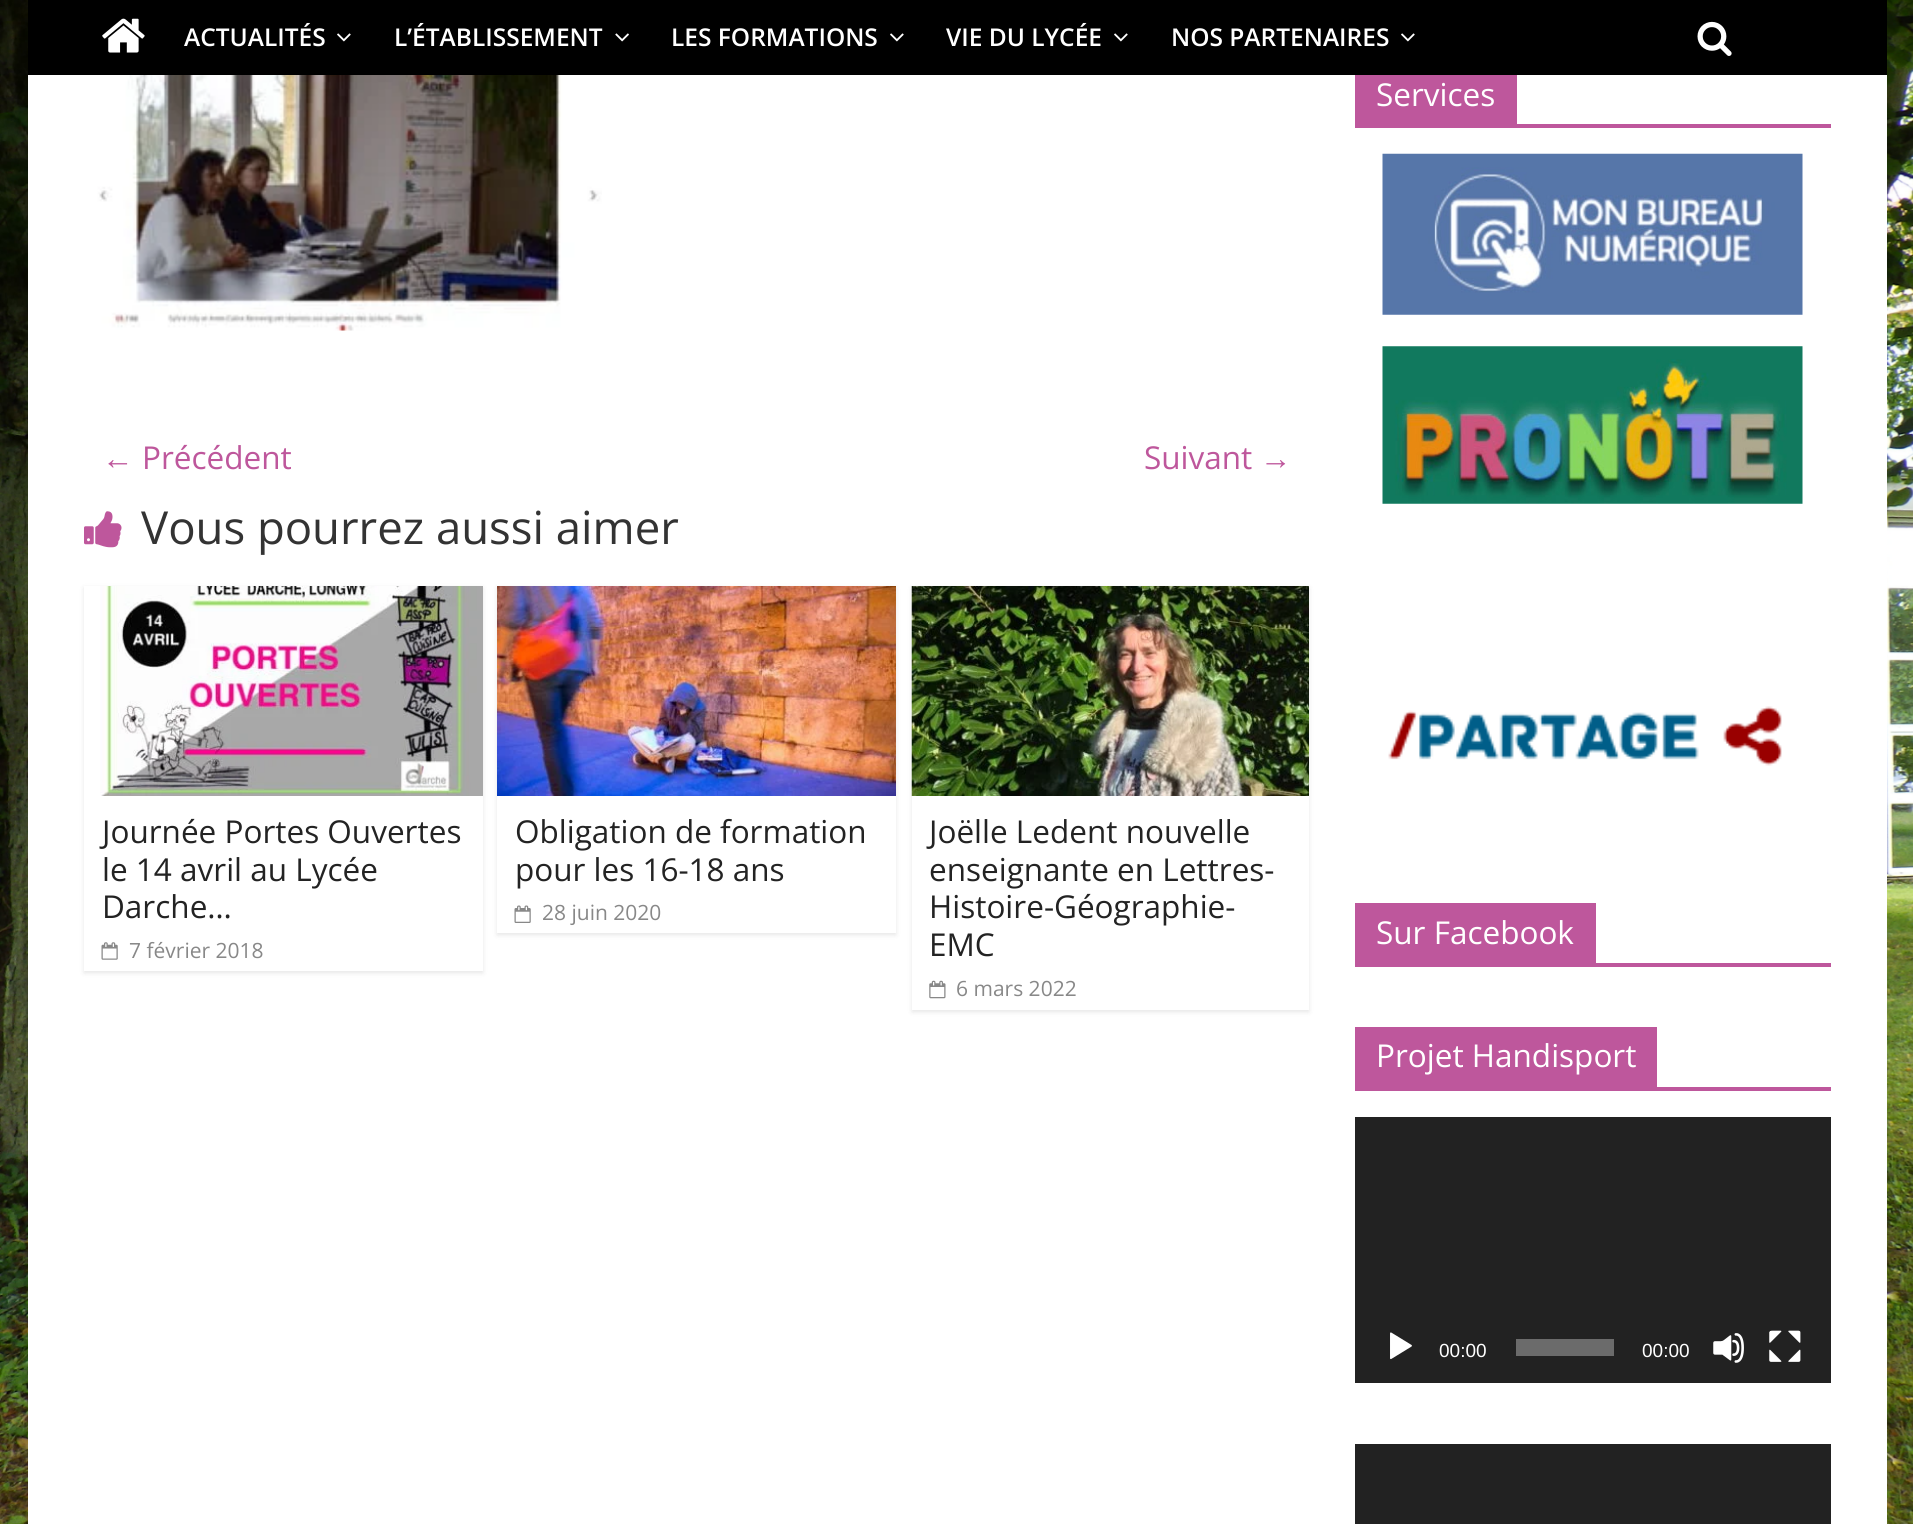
import math
import cairocffi as cairo

surface = cairo.ImageSurface(cairo.FORMAT_RGB24, 1913, 1524)
ctx = cairo.Context(surface)
options = cairo.FontOptions()
options.set_hint_metrics(cairo.HINT_METRICS_OFF)
options.set_hint_style(cairo.HINT_STYLE_NONE)
ctx.set_font_options(options)
ctx.set_miter_limit(4)


def rgb(r, g, b):
    ctx.set_source_rgb(r / 255, g / 255, b / 255)


def face(family, size, italic, bold):
    ctx.select_font_face(family, cairo.FONT_SLANT_ITALIC if italic else cairo.FONT_SLANT_NORMAL, cairo.FONT_WEIGHT_BOLD if bold else cairo.FONT_WEIGHT_NORMAL)
    ctx.set_font_size(size)


def label(x, y, s):
    ctx.move_to(x, y)
    ctx.show_text(s)


def rect(x, y, w, h):
    ctx.rectangle(x, y, w, h)
    ctx.fill()


def rrect(x, y, w, h, r):
    ctx.new_sub_path()
    for i, (u, v) in enumerate([(x + w - r, y + h - r), (x + r, y + h - r), (x + r, y + r), (x + w - r, y + r)]):
        ctx.arc(u, v, r, i * math.pi / 2, (i + 1) * math.pi / 2)
    ctx.close_path()


def soft_shadow(x, y, w, h, r, blur, alpha):
    ctx.push_group_with_content(cairo.CONTENT_ALPHA)
    ctx.set_operator(cairo.OPERATOR_SOURCE)
    for i in range(15, -16, -2):
        e = blur * i / 6
        if min(w, h) + 2 * e > 0:
            ctx.set_source_rgba(0, 0, 0, alpha * math.erfc((i - 1) / 8.5) / 2)
            rrect(x - e, y - e, w + 2 * e, h + 2 * e, max(0, min(r + e + blur * .6, min(w, h) / 2 + e)))
            ctx.fill()
    ctx.mask(ctx.pop_group())


def image(path, x, y, w, h):
    ctx.save()
    ctx.set_source_surface(cairo.ImageSurface.create_from_png(path), x, y)
    ctx.rectangle(x, y, w, h)
    ctx.fill()
    ctx.restore()


rgb(255, 255, 255)
ctx.paint()
image('image0.png', 0, 0, 1913, 1524)
rgb(0, 0, 0)
rect(28, 0, 1859, 75)
image('image1.png', 102, 18, 43, 35)
face('Open Sans SemiBold', 24.5, 0, 0)
rgb(255, 255, 255)
label(184, 46, 'ACTUALITÉS')
image('image2.png', 337, 33, 14, 9)
label(394, 46, 'L’ÉTABLISSEMENT')
image('image3.png', 615, 33, 14, 9)
label(671, 46, 'LES FORMATIONS')
image('image2.png', 890, 33, 14, 9)
label(946, 46, 'VIE DU LYCÉE')
image('image2.png', 1114, 33, 14, 9)
label(1171, 46, 'NOS PARTENAIRES')
image('image2.png', 1401, 33, 14, 9)
image('image4.png', 1697, 21, 35, 35)
rect(28, 75, 1859, 1449)
image('image5.png', 91, 75, 511, 256)
face('Liberation Serif', 31.5, 0, 0)
rgb(190, 87, 156)
label(102, 469, '←')
face('Open Sans', 31.5, 0, 0)
label(142, 469, 'Précédent')
label(1144, 469, 'Suivant')
face('Liberation Serif', 31.5, 0, 0)
label(1260, 469, '→')
image('image6.png', 84, 511, 38, 37)
face('Open Sans', 45.5, 0, 0)
rgb(51, 51, 51)
label(141, 544, 'Vous pourrez aussi aimer')
ctx.save()
ctx.set_fill_rule(cairo.FILL_RULE_EVEN_ODD)
ctx.new_path()
ctx.move_to(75, 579)
ctx.line_to(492, 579)
ctx.line_to(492, 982)
ctx.line_to(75, 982)
ctx.close_path()
ctx.move_to(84, 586)
ctx.line_to(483, 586)
ctx.line_to(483, 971)
ctx.line_to(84, 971)
ctx.close_path()
ctx.clip()
rgb(0, 0, 0)
soft_shadow(84, 588, 399, 385, 0, 2.5, 0.1)
ctx.restore()
image('image7.png', 100, 586, 383, 210)
face('Open Sans', 31.5, 0, 0)
rgb(35, 35, 35)
label(102, 843, 'Journée Portes Ouvertes')
label(102, 881, 'le 14 avril au Lycée')
label(102, 918, 'Darche…')
image('image8.png', 101, 942, 17, 18)
face('Open Sans', 21, 0, 0)
rgb(136, 136, 136)
label(129, 958, '7 février 2018')
ctx.save()
ctx.set_fill_rule(cairo.FILL_RULE_EVEN_ODD)
ctx.new_path()
ctx.move_to(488, 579)
ctx.line_to(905, 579)
ctx.line_to(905, 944)
ctx.line_to(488, 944)
ctx.close_path()
ctx.move_to(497, 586)
ctx.line_to(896, 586)
ctx.line_to(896, 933)
ctx.line_to(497, 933)
ctx.close_path()
ctx.clip()
rgb(0, 0, 0)
soft_shadow(497, 588, 399, 347, 0, 2.5, 0.1)
ctx.restore()
image('image9.png', 497, 586, 399, 210)
face('Open Sans', 31.5, 0, 0)
rgb(35, 35, 35)
label(515, 843, 'Obligation de formation')
label(515, 881, 'pour les 16-18 ans')
image('image10.png', 514, 905, 17, 18)
face('Open Sans', 21, 0, 0)
rgb(136, 136, 136)
label(542, 920, '28 juin 2020')
ctx.save()
ctx.set_fill_rule(cairo.FILL_RULE_EVEN_ODD)
ctx.new_path()
ctx.move_to(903, 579)
ctx.line_to(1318, 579)
ctx.line_to(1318, 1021)
ctx.line_to(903, 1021)
ctx.close_path()
ctx.move_to(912, 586)
ctx.line_to(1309, 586)
ctx.line_to(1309, 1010)
ctx.line_to(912, 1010)
ctx.close_path()
ctx.clip()
rgb(0, 0, 0)
soft_shadow(912, 588, 397, 424, 0, 2.5, 0.1)
ctx.restore()
image('image11.png', 911, 586, 398, 210)
face('Open Sans', 31.5, 0, 0)
rgb(35, 35, 35)
label(929, 843, 'Joëlle Ledent nouvelle')
label(929, 881, 'enseignante en Lettres-')
label(929, 918, 'Histoire-Géographie-')
label(929, 956, 'EMC')
image('image12.png', 929, 980, 17, 19)
face('Open Sans', 21, 0, 0)
rgb(136, 136, 136)
label(956, 996, '6 mars 2022')
rgb(190, 87, 156)
rect(1355, 124, 476, 4)
rect(1355, 75, 162, 49)
face('Open Sans', 31.5, 0, 0)
rgb(255, 255, 255)
label(1376, 106, 'Services')
image('image13.png', 1382, 153, 421, 162)
image('image14.png', 1382, 346, 421, 158)
image('image15.png', 1388, 706, 394, 60)
rgb(190, 87, 156)
rect(1355, 963, 476, 4)
rect(1355, 903, 241, 60)
rgb(255, 255, 255)
label(1376, 944, 'Sur Facebook')
rgb(190, 87, 156)
rect(1355, 1087, 476, 4)
rect(1355, 1027, 302, 60)
rgb(255, 255, 255)
label(1376, 1067, 'Projet Handisport')
rgb(34, 34, 34)
rect(1355, 1117, 476, 266)
image('image16.png', 1390, 1332, 22, 28)
face('Liberation Sans', 19, 0, 0)
rgb(255, 255, 255)
label(1439, 1357, '00:00')
rgb(107, 107, 107)
rect(1516, 1339, 98, 17)
rgb(255, 255, 255)
label(1642, 1357, '00:00')
image('image17.png', 1713, 1333, 31, 30)
image('image18.png', 1769, 1330, 32, 32)
rgb(34, 34, 34)
rect(1355, 1444, 476, 80)
surface.write_to_png('render.png')
